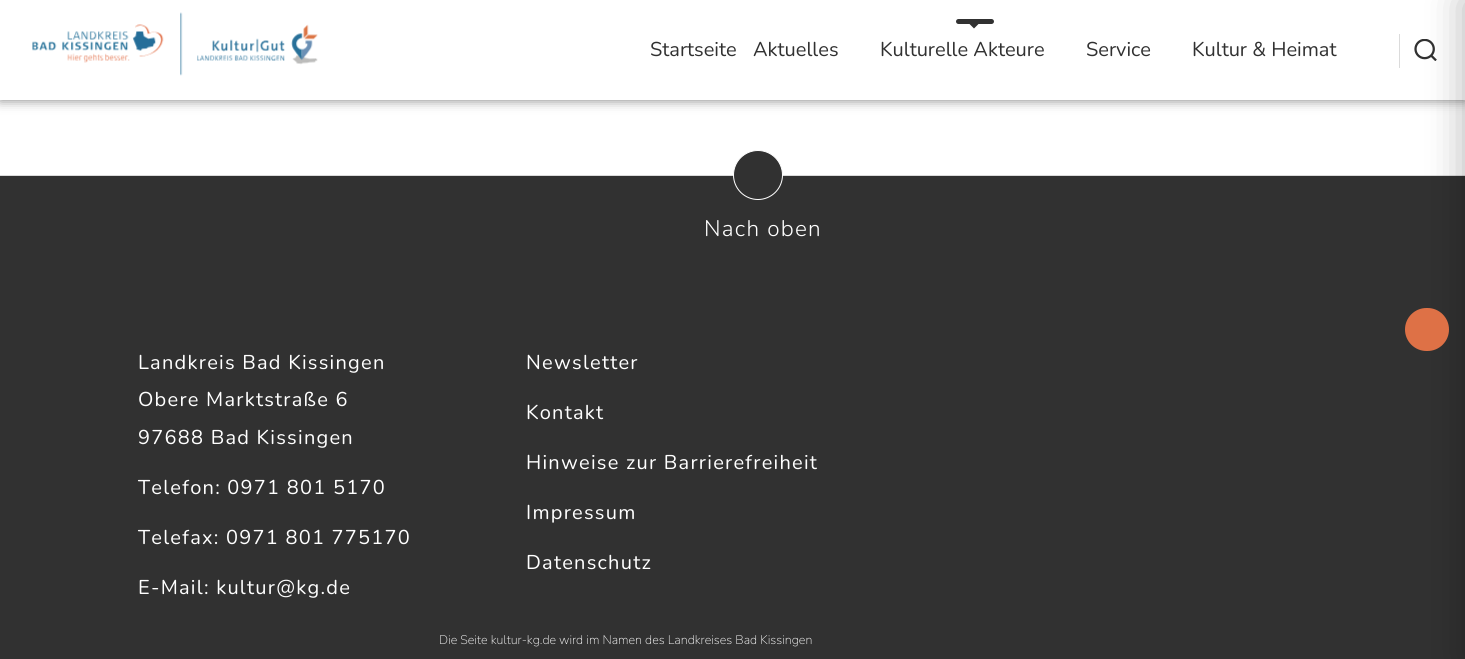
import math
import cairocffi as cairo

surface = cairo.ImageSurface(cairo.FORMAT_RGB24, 1465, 659)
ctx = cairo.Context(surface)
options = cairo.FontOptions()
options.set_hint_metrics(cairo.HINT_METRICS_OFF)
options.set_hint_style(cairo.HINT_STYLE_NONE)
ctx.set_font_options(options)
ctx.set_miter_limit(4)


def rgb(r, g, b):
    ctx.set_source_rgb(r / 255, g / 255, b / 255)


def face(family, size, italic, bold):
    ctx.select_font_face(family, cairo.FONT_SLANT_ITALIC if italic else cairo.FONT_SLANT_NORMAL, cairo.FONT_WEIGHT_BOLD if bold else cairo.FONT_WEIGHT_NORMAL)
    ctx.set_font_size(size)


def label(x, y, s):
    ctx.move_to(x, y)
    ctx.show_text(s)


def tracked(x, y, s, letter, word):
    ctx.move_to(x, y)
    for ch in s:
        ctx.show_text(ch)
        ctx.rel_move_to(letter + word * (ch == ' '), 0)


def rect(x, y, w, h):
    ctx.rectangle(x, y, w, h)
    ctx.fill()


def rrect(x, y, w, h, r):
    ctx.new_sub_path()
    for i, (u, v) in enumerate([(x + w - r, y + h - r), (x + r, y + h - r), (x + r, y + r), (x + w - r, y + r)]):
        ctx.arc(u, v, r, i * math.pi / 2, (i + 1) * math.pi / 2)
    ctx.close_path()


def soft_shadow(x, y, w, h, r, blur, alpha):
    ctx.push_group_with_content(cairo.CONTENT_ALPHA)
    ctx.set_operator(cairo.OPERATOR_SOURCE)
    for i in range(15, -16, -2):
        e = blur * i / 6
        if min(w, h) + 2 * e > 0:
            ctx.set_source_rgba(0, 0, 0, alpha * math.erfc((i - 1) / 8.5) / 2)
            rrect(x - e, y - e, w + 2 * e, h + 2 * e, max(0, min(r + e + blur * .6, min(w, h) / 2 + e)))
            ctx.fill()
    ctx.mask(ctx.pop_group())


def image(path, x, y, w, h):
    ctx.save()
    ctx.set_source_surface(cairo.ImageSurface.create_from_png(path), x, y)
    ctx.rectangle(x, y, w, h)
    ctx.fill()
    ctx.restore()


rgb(255, 255, 255)
ctx.paint()
rgb(0, 0, 0)
soft_shadow(0, 0, 1465, 100, 0, 6, 0.5)
rgb(255, 255, 255)
rect(0, 0, 1465, 100)
image('image0.png', 32, 12, 286, 64)
face('Nunito', 20, 0, 0)
rgb(49, 49, 49)
label(650, 56, 'Startseite')
label(753, 56, 'Aktuelles')
rrect(956, 19, 38, 5, 2.5)
ctx.fill()
ctx.new_path()
ctx.move_to(974, 19.5)
ctx.line_to(978.5, 24)
ctx.line_to(974, 28.5)
ctx.line_to(969.5, 24)
ctx.close_path()
ctx.fill()
label(880, 56, 'Kulturelle Akteure')
label(1086, 56, 'Service')
label(1192, 56, 'Kultur & Heimat')
rgb(219, 219, 219)
rect(1399, 34, 1, 34)
image('image1.png', 1414, 39, 23, 22)
rgb(49, 49, 49)
rect(0, 176, 1465, 483)
rgb(219, 219, 219)
rect(0, 175, 1465, 1)
rgb(0, 0, 0)
soft_shadow(1465, 0, 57, 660, 0, 19, 0.3)
rgb(222, 113, 70)
rrect(1405, 308, 44, 43, 21.5)
ctx.fill()
rgb(49, 49, 49)
ctx.arc(758, 175, 24.5, 0, 2 * math.pi)
ctx.fill_preserve()
rgb(255, 255, 255)
ctx.set_line_width(1)
ctx.stroke()
face('Nunito Light', 22.5, 0, 0)
tracked(704, 236, 'Nach oben', 1.25, 0)
face('Nunito', 20, 0, 0)
tracked(138, 369, 'Landkreis Bad Kissingen', 1.25, 0)
tracked(138, 406, 'Obere Marktstraße 6', 1.25, 0)
tracked(138, 444, '97688 Bad Kissingen', 1.25, 0)
tracked(138, 494, 'Telefon: 0971 801 5170', 1.25, 0)
tracked(138, 544, 'Telefax: 0971 801 775170', 1.25, 0)
tracked(138, 594, 'E-Mail: kultur@kg.de', 1.25, 0)
tracked(526, 369, 'Newsletter', 1.25, 0)
tracked(526, 419, 'Kontakt', 1.25, 0)
tracked(526, 469, 'Hinweise zur Barrierefreiheit', 1.25, 0)
tracked(526, 519, 'Impressum', 1.25, 0)
tracked(526, 569, 'Datenschutz', 1.25, 0)
face('Nunito ExtraLight', 12.5, 0, 0)
label(439, 644, 'Die Seite kultur-kg.de')
label(559, 644, 'wird im Namen des Landkreises Bad Kissingen')
surface.write_to_png('render.png')
